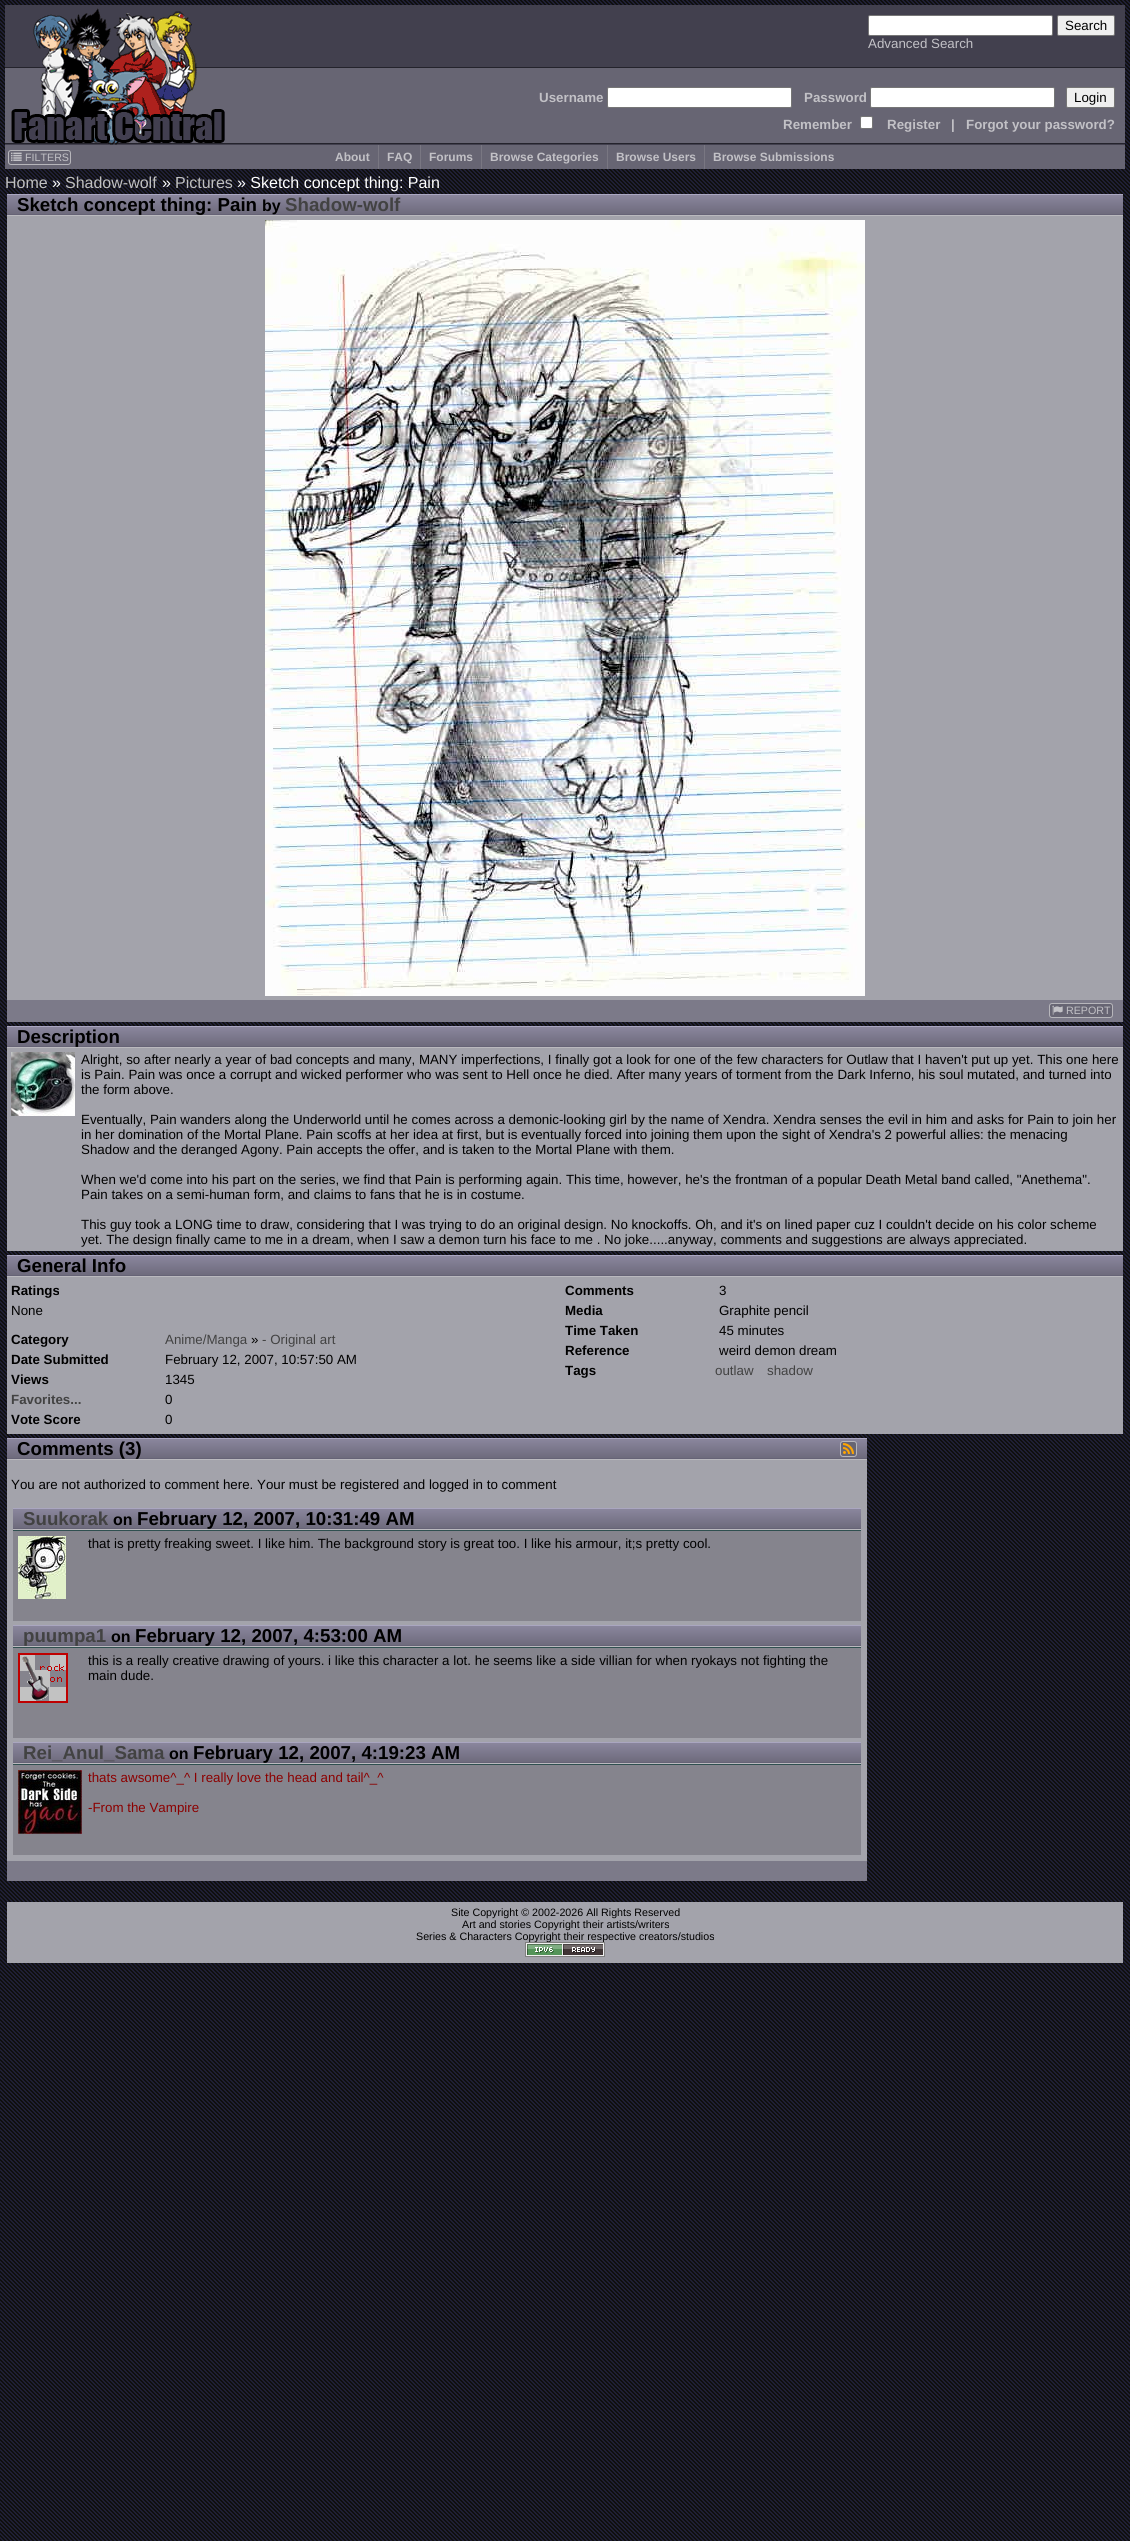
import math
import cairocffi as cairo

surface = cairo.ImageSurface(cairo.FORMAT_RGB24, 1130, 2541)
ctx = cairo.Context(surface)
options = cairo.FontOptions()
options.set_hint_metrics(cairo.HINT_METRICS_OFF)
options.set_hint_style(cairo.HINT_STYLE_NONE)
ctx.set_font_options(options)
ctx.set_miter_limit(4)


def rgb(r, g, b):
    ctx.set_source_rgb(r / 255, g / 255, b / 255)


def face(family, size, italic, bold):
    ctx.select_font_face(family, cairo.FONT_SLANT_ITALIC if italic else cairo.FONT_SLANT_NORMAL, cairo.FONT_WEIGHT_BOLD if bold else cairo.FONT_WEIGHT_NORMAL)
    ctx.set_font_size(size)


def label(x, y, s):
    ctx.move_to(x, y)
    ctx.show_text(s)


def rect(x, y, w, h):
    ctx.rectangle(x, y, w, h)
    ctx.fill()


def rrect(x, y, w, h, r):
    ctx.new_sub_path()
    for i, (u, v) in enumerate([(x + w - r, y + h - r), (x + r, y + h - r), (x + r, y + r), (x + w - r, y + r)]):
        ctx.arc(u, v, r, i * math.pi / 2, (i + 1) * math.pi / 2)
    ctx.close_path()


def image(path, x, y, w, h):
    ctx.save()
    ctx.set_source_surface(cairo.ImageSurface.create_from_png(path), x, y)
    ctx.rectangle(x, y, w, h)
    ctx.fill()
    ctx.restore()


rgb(255, 255, 255)
ctx.paint()
image('image0.png', 0, 0, 1130, 2541)
image('image1.png', 5, 5, 1120, 140)
image('image2.png', 11, 8, 214, 137)
rgb(255, 255, 255)
rrect(868.5, 15.5, 184, 20, 1.5)
ctx.fill_preserve()
rgb(118, 118, 118)
ctx.set_line_width(1)
ctx.stroke()
rgb(239, 239, 239)
rrect(1057.5, 15.5, 57, 20, 1.5)
ctx.fill_preserve()
rgb(118, 118, 118)
ctx.stroke()
face('Liberation Sans', 13.33, 0, 0)
rgb(0, 0, 0)
label(1065, 30, 'Search')
rgb(194, 193, 198)
label(868, 48, 'Advanced Search')
face('Liberation Sans', 13.33, 0, 1)
label(539, 102, 'Username')
rgb(255, 255, 255)
rrect(607.5, 87.5, 184, 20, 1.5)
ctx.fill_preserve()
rgb(118, 118, 118)
ctx.stroke()
rgb(194, 193, 198)
label(804, 102, 'Password')
rgb(255, 255, 255)
rrect(870.5, 87.5, 184, 20, 1.5)
ctx.fill_preserve()
rgb(118, 118, 118)
ctx.stroke()
rgb(239, 239, 239)
rrect(1066.5, 87.5, 48, 20, 1.5)
ctx.fill_preserve()
rgb(118, 118, 118)
ctx.stroke()
face('Liberation Sans', 13.33, 0, 0)
rgb(0, 0, 0)
label(1074, 102, 'Login')
face('Liberation Sans', 13.33, 0, 1)
rgb(194, 193, 198)
label(783, 129, 'Remember')
rgb(255, 255, 255)
rrect(860.5, 116.5, 12, 12, 1.5)
ctx.fill_preserve()
rgb(118, 118, 118)
ctx.stroke()
rgb(194, 193, 198)
label(887, 129, 'Register')
label(951, 129, '|')
label(966, 129, 'Forgot your password?')
rgb(103, 101, 115)
rect(5, 145, 1120, 24)
rrect(8.5, 150.5, 62, 14, 2.5)
rgb(183, 182, 187)
ctx.stroke()
image('image3.png', 11, 152, 11, 9)
face('Liberation Sans', 10.7, 0, 0)
rgb(194, 193, 198)
label(25, 161, 'FILTERS')
rgb(121, 119, 130)
rect(378, 145, 1, 24)
face('Liberation Sans', 12, 0, 1)
rgb(194, 193, 198)
label(335, 161, 'About')
rgb(121, 119, 130)
rect(420, 145, 1, 24)
rgb(194, 193, 198)
label(387, 161, 'FAQ')
rgb(121, 119, 130)
rect(481, 145, 1, 24)
rgb(194, 193, 198)
label(429, 161, 'Forums')
rgb(121, 119, 130)
rect(607, 145, 1, 24)
rgb(194, 193, 198)
label(490, 161, 'Browse Categories')
rgb(121, 119, 130)
rect(704, 145, 1, 24)
rgb(194, 193, 198)
label(616, 161, 'Browse Users')
label(713, 161, 'Browse Submissions')
face('Liberation Sans', 16, 0, 0)
rgb(192, 192, 192)
label(5, 188, 'Home')
rgb(255, 255, 255)
label(52, 188, '»')
rgb(192, 192, 192)
label(65, 188, 'Shadow-wolf')
rgb(255, 255, 255)
label(162, 188, '»')
rgb(192, 192, 192)
label(175, 188, 'Pictures')
rgb(255, 255, 255)
label(237, 188, '» Sketch concept thing: Pain')
gradient = cairo.LinearGradient(565, 194, 565, 216)
gradient.add_color_stop_rgba(0.01, 0.545, 0.529, 0.62, 1)
gradient.add_color_stop_rgba(1, 0.42, 0.408, 0.475, 1)
ctx.set_source(gradient)
rect(7, 195, 1116, 19)
rgb(170, 166, 192)
rect(7, 194, 1116, 1)
rgb(102, 99, 118)
rect(7, 214, 1116, 1)
rgb(186, 185, 190)
rect(7, 215, 1116, 1)
face('Liberation Sans', 18.7, 0, 1)
rgb(0, 0, 0)
label(17, 211, 'Sketch concept thing: Pain')
face('Liberation Sans', 16, 0, 1)
label(262, 211, 'by')
face('Liberation Sans', 18.7, 0, 1)
rgb(66, 66, 66)
label(285, 211, 'Shadow-wolf')
rgb(163, 163, 171)
rect(7, 216, 1116, 784)
image('image4.png', 265, 220, 600, 776)
rgb(124, 122, 137)
rect(7, 1000, 1116, 22)
rgb(103, 101, 115)
rrect(1049.5, 1003.5, 63, 14, 2.5)
ctx.fill_preserve()
rgb(183, 182, 187)
ctx.stroke()
image('image5.png', 1052, 1005, 11, 10)
face('Liberation Sans', 10.7, 0, 0)
rgb(194, 193, 198)
label(1066, 1014, 'REPORT')
gradient = cairo.LinearGradient(565, 1026, 565, 1048)
gradient.add_color_stop_rgba(0.01, 0.545, 0.529, 0.62, 1)
gradient.add_color_stop_rgba(1, 0.42, 0.408, 0.475, 1)
ctx.set_source(gradient)
rect(7, 1027, 1116, 19)
rgb(170, 166, 192)
rect(7, 1026, 1116, 1)
rgb(102, 99, 118)
rect(7, 1046, 1116, 1)
rgb(186, 185, 190)
rect(7, 1047, 1116, 1)
face('Liberation Sans', 18.7, 0, 1)
rgb(0, 0, 0)
label(17, 1043, 'Description')
rgb(163, 163, 171)
rect(7, 1048, 1116, 203)
image('image6.png', 11, 1052, 64, 64)
face('Liberation Sans', 13.33, 0, 0)
rgb(0, 0, 0)
label(81, 1064, 'Alright, so after nearly a year of bad concepts and many, MANY imperfections, I finally got a look for one of the few characters for Outlaw that I haven\'t put up yet. This one here')
label(81, 1079, 'is Pain. Pain was once a corrupt and wicked performer who was sent to Hell once he died. After many years of torment from the Dark Inferno, his soul mutated, and turned into')
label(81, 1094, 'the form above.')
label(81, 1124, 'Eventually, Pain wanders along the Underworld until he comes across a demonic-looking girl by the name of Xendra. Xendra senses the evil in him and asks for Pain to join her')
label(81, 1139, 'in her domination of the Mortal Plane. Pain scoffs at her idea at first, but is eventually forced into joining them upon the sight of Xendra\'s 2 powerful allies: the menacing')
label(81, 1154, 'Shadow and the deranged Agony. Pain accepts the offer, and is taken to the Mortal Plane with them.')
label(81, 1184, 'When we\'d come into his part on the series, we find that Pain is performing again. This time, however, he\'s the frontman of a popular Death Metal band called, "Anethema".')
label(81, 1199, 'Pain takes on a semi-human form, and claims to fans that he is in costume.')
label(81, 1229, 'This guy took a LONG time to draw, considering that I was trying to do an original design. No knockoffs. Oh, and it\'s on lined paper cuz I couldn\'t decide on his color scheme')
label(81, 1244, 'yet. The design finally came to me in a dream, when I saw a demon turn his face to me . No joke.....anyway, comments and suggestions are always appreciated.')
gradient = cairo.LinearGradient(565, 1255, 565, 1277)
gradient.add_color_stop_rgba(0.01, 0.545, 0.529, 0.62, 1)
gradient.add_color_stop_rgba(1, 0.42, 0.408, 0.475, 1)
ctx.set_source(gradient)
rect(7, 1256, 1116, 19)
rgb(170, 166, 192)
rect(7, 1255, 1116, 1)
rgb(102, 99, 118)
rect(7, 1275, 1116, 1)
rgb(186, 185, 190)
rect(7, 1276, 1116, 1)
face('Liberation Sans', 18.7, 0, 1)
rgb(0, 0, 0)
label(17, 1272, 'General Info')
rgb(163, 163, 171)
rect(7, 1277, 1116, 157)
face('Liberation Sans', 13.33, 0, 1)
rgb(0, 0, 0)
label(11, 1295, 'Ratings')
face('Liberation Sans', 13.33, 0, 0)
label(11, 1315, 'None')
face('Liberation Sans', 13.33, 0, 1)
label(11, 1344, 'Category')
face('Liberation Sans', 13.33, 0, 0)
rgb(66, 66, 66)
label(165, 1344, 'Anime/Manga')
rgb(0, 0, 0)
label(251, 1344, '»')
rgb(66, 66, 66)
label(262, 1344, '- Original art')
face('Liberation Sans', 13.33, 0, 1)
rgb(0, 0, 0)
label(11, 1364, 'Date Submitted')
face('Liberation Sans', 13.33, 0, 0)
label(165, 1364, 'February 12, 2007, 10:57:50 AM')
face('Liberation Sans', 13.33, 0, 1)
label(11, 1384, 'Views')
face('Liberation Sans', 13.33, 0, 0)
label(165, 1384, '1345')
face('Liberation Sans', 13.33, 0, 1)
rgb(66, 66, 66)
label(11, 1404, 'Favorites...')
face('Liberation Sans', 13.33, 0, 0)
rgb(0, 0, 0)
label(165, 1404, '0')
face('Liberation Sans', 13.33, 0, 1)
label(11, 1424, 'Vote Score')
face('Liberation Sans', 13.33, 0, 0)
label(165, 1424, '0')
face('Liberation Sans', 13.33, 0, 1)
label(565, 1295, 'Comments')
face('Liberation Sans', 13.33, 0, 0)
label(719, 1295, '3')
face('Liberation Sans', 13.33, 0, 1)
label(565, 1315, 'Media')
face('Liberation Sans', 13.33, 0, 0)
label(719, 1315, 'Graphite pencil')
face('Liberation Sans', 13.33, 0, 1)
label(565, 1335, 'Time Taken')
face('Liberation Sans', 13.33, 0, 0)
label(719, 1335, '45 minutes')
face('Liberation Sans', 13.33, 0, 1)
label(565, 1355, 'Reference')
face('Liberation Sans', 13.33, 0, 0)
label(719, 1355, 'weird demon dream')
face('Liberation Sans', 13.33, 0, 1)
label(565, 1375, 'Tags')
face('Liberation Sans', 13.33, 0, 0)
rgb(66, 66, 66)
label(715, 1375, 'outlaw')
label(767, 1375, 'shadow')
gradient = cairo.LinearGradient(437, 1438, 437, 1460)
gradient.add_color_stop_rgba(0.01, 0.545, 0.529, 0.62, 1)
gradient.add_color_stop_rgba(1, 0.42, 0.408, 0.475, 1)
ctx.set_source(gradient)
rect(7, 1439, 860, 19)
rgb(170, 166, 192)
rect(7, 1438, 860, 1)
rgb(102, 99, 118)
rect(7, 1458, 860, 1)
rgb(186, 185, 190)
rect(7, 1459, 860, 1)
face('Liberation Sans', 18.7, 0, 1)
rgb(0, 0, 0)
label(17, 1455, 'Comments (3)')
rgb(103, 101, 115)
rrect(840.5, 1441.5, 16, 15, 2.5)
ctx.fill_preserve()
rgb(183, 182, 187)
ctx.stroke()
image('image7.png', 843, 1443, 11, 11)
rgb(163, 163, 171)
rect(7, 1460, 860, 401)
face('Liberation Sans', 13.33, 0, 0)
rgb(0, 0, 0)
label(11, 1489, 'You are not authorized to comment here. Your must be registered and logged in to comment')
gradient = cairo.LinearGradient(437, 1508, 437, 1530)
gradient.add_color_stop_rgba(0.01, 0.545, 0.529, 0.62, 1)
gradient.add_color_stop_rgba(1, 0.42, 0.408, 0.475, 1)
ctx.set_source(gradient)
rect(13, 1509, 848, 19)
rgb(170, 166, 192)
rect(13, 1508, 848, 1)
rgb(102, 99, 118)
rect(13, 1528, 848, 1)
rgb(186, 185, 190)
rect(13, 1529, 848, 1)
face('Liberation Sans', 18.7, 0, 1)
rgb(66, 66, 66)
label(23, 1525, 'Suukorak')
face('Liberation Sans', 16, 0, 1)
rgb(0, 0, 0)
label(113, 1525, 'on')
face('Liberation Sans', 18.7, 0, 1)
label(137, 1525, 'February 12, 2007, 10:31:49 AM')
rgb(133, 132, 141)
rect(13, 1531, 848, 90)
rgb(47, 79, 79)
rect(13, 1530, 848, 1)
image('image8.png', 18, 1536, 48, 63)
face('Liberation Sans', 13.33, 0, 0)
rgb(0, 0, 0)
label(88, 1548, 'that is pretty freaking sweet. I like him. The background story is great too. I like his armour, it;s pretty cool.')
gradient = cairo.LinearGradient(437, 1625, 437, 1647)
gradient.add_color_stop_rgba(0.01, 0.545, 0.529, 0.62, 1)
gradient.add_color_stop_rgba(1, 0.42, 0.408, 0.475, 1)
ctx.set_source(gradient)
rect(13, 1626, 848, 19)
rgb(170, 166, 192)
rect(13, 1625, 848, 1)
rgb(102, 99, 118)
rect(13, 1645, 848, 1)
rgb(186, 185, 190)
rect(13, 1646, 848, 1)
face('Liberation Sans', 18.7, 0, 1)
rgb(66, 66, 66)
label(23, 1642, 'puumpa1')
face('Liberation Sans', 16, 0, 1)
rgb(0, 0, 0)
label(111, 1642, 'on')
face('Liberation Sans', 18.7, 0, 1)
label(135, 1642, 'February 12, 2007, 4:53:00 AM')
rgb(133, 132, 141)
rect(13, 1648, 848, 90)
rgb(47, 79, 79)
rect(13, 1647, 848, 1)
image('image9.png', 18, 1653, 50, 50)
face('Liberation Sans', 13.33, 0, 0)
rgb(0, 0, 0)
label(88, 1665, 'this is a really creative drawing of yours. i like this character a lot. he seems like a side villian for when ryokays not fighting the')
label(88, 1680, 'main dude.')
gradient = cairo.LinearGradient(437, 1742, 437, 1764)
gradient.add_color_stop_rgba(0.01, 0.545, 0.529, 0.62, 1)
gradient.add_color_stop_rgba(1, 0.42, 0.408, 0.475, 1)
ctx.set_source(gradient)
rect(13, 1743, 848, 19)
rgb(170, 166, 192)
rect(13, 1742, 848, 1)
rgb(102, 99, 118)
rect(13, 1762, 848, 1)
rgb(186, 185, 190)
rect(13, 1763, 848, 1)
face('Liberation Sans', 18.7, 0, 1)
rgb(66, 66, 66)
label(23, 1759, 'Rei_Anul_Sama')
face('Liberation Sans', 16, 0, 1)
rgb(0, 0, 0)
label(169, 1759, 'on')
face('Liberation Sans', 18.7, 0, 1)
label(193, 1759, 'February 12, 2007, 4:19:23 AM')
rgb(133, 132, 141)
rect(13, 1765, 848, 90)
rgb(47, 79, 79)
rect(13, 1764, 848, 1)
image('image10.png', 18, 1770, 64, 64)
face('Liberation Sans', 13.33, 0, 0)
rgb(139, 0, 0)
label(88, 1782, 'thats awsome^_^ I really love the head and tail^_^')
label(88, 1812, '-From the Vampire')
rgb(124, 122, 137)
rect(7, 1861, 860, 20)
rgb(163, 163, 171)
rect(7, 1902, 1116, 61)
face('Liberation Sans', 10.7, 0, 0)
rgb(0, 0, 0)
label(451, 1916, 'Site Copyright © 2002-2026 All Rights Reserved')
label(462, 1928, 'Art and stories Copyright their artists/writers')
label(416, 1940, 'Series & Characters Copyright their respective creators/studios')
image('image11.png', 525, 1942, 80, 15)
surface.write_to_png('render.png')
